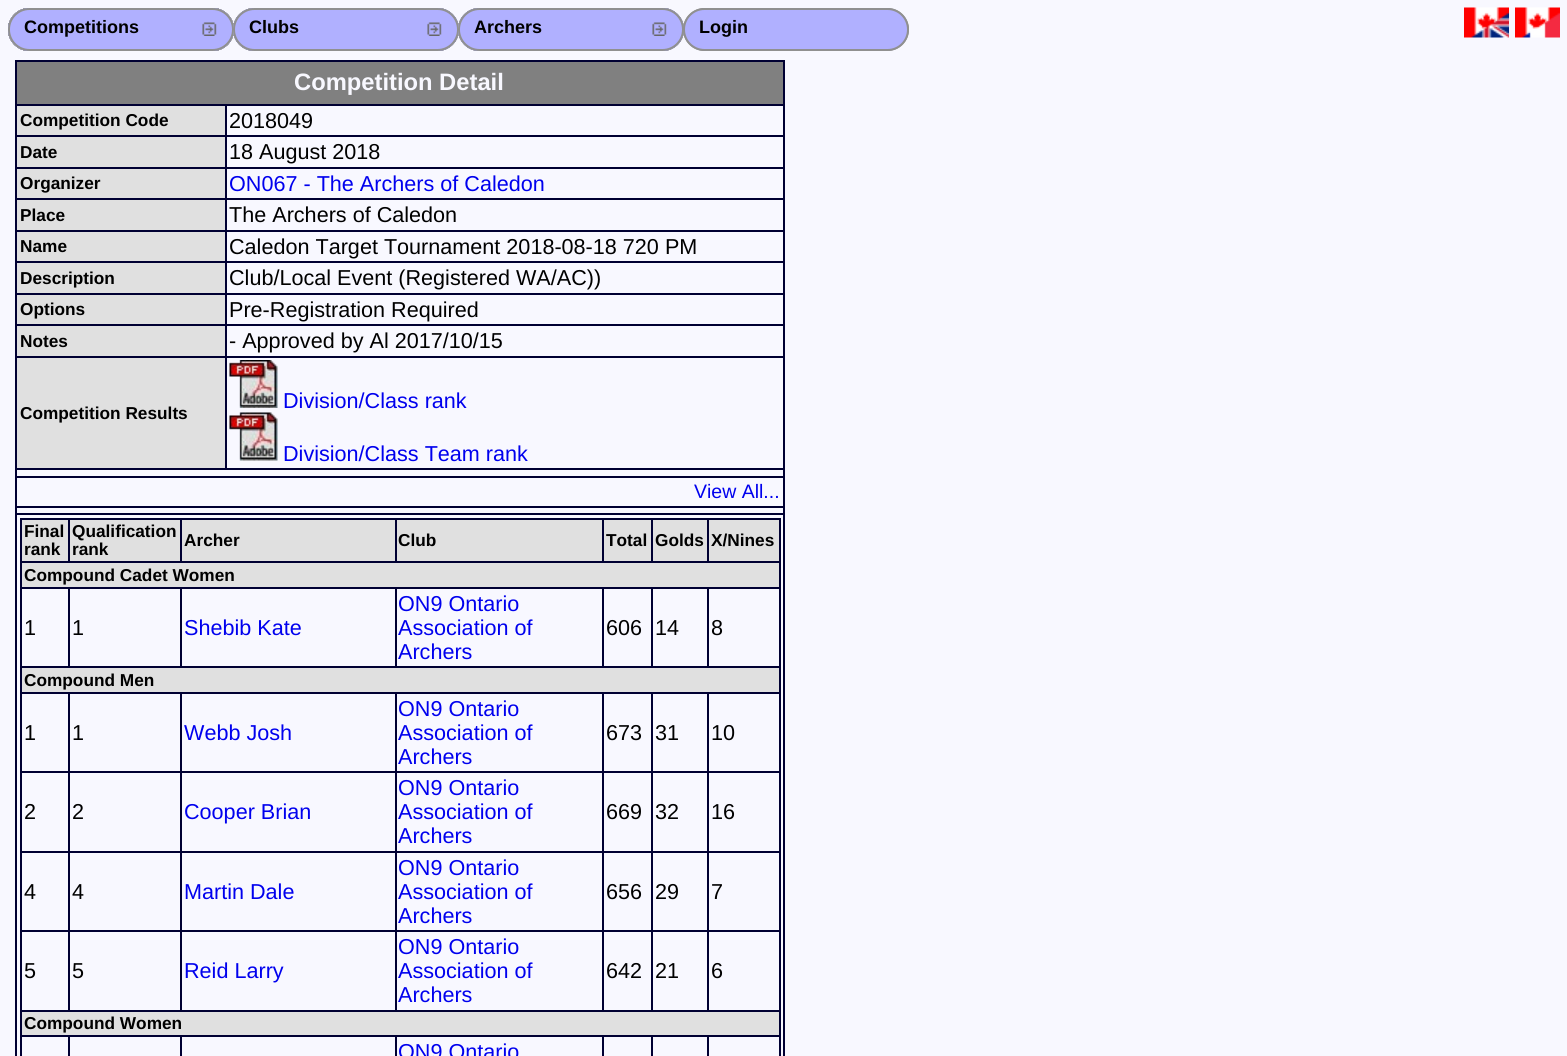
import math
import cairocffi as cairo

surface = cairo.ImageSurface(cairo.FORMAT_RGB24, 1567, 1056)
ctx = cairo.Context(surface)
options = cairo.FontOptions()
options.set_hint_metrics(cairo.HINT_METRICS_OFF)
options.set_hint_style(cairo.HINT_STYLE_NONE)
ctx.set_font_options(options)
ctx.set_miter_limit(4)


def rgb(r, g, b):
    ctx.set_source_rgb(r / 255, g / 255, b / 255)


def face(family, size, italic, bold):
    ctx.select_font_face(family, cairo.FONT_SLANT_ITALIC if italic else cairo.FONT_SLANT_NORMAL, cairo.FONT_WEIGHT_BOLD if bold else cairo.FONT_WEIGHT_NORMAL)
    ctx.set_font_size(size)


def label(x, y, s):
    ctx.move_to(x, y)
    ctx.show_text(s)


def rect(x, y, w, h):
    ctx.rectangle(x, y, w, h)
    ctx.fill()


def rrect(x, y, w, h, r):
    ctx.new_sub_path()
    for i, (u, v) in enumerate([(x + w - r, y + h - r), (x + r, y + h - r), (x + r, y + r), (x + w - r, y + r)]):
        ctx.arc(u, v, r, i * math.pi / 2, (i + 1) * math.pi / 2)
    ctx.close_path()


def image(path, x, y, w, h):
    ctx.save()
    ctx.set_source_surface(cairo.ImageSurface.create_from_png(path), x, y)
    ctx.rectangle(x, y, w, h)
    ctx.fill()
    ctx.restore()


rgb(248, 248, 255)
ctx.paint()
rrect(9, 9, 224, 41, 20.5)
rgb(144, 144, 144)
ctx.stroke()
rrect(234, 9, 224, 41, 20.5)
ctx.stroke()
rrect(9, 9, 224, 41, 20.5)
ctx.stroke()
rrect(9, 9, 224, 41, 20.5)
ctx.stroke()
rrect(9, 9, 224, 41, 20.5)
ctx.stroke()
rrect(9, 9, 224, 41, 20.5)
ctx.stroke()
rrect(9, 9, 224, 41, 20.5)
ctx.stroke()
rrect(9, 9, 224, 41, 20.5)
ctx.stroke()
rrect(9, 9, 224, 41, 20.5)
ctx.stroke()
rrect(9, 9, 224, 41, 20.5)
ctx.stroke()
rrect(9, 9, 224, 41, 20.5)
ctx.stroke()
rrect(9, 9, 224, 41, 20.5)
ctx.stroke()
rrect(9, 9, 224, 41, 20.5)
ctx.stroke()
rrect(9, 9, 224, 41, 20.5)
ctx.stroke()
rrect(9, 9, 224, 41, 20.5)
ctx.stroke()
rrect(9, 9, 224, 41, 20.5)
ctx.stroke()
rgb(176, 176, 255)
rrect(8, 8, 226, 43, 21.5)
ctx.fill()
image('image0.png', 202, 22, 15, 14)
rrect(9, 9, 224, 41, 20.5)
rgb(144, 144, 144)
ctx.stroke()
face('Liberation Sans', 18, 0, 1)
rgb(0, 0, 0)
label(24, 33, 'Competitions')
rrect(459, 9, 224, 41, 20.5)
rgb(144, 144, 144)
ctx.stroke()
rrect(234, 9, 224, 41, 20.5)
ctx.stroke()
rrect(234, 9, 224, 41, 20.5)
ctx.stroke()
rrect(234, 9, 224, 41, 20.5)
ctx.stroke()
rrect(234, 9, 224, 41, 20.5)
ctx.stroke()
rrect(234, 9, 224, 41, 20.5)
ctx.stroke()
rgb(176, 176, 255)
rrect(233, 8, 226, 43, 21.5)
ctx.fill()
image('image1.png', 427, 22, 15, 14)
rrect(234, 9, 224, 41, 20.5)
rgb(144, 144, 144)
ctx.stroke()
rgb(0, 0, 0)
label(249, 33, 'Clubs')
rrect(684, 9, 224, 41, 20.5)
rgb(144, 144, 144)
ctx.stroke()
rrect(459, 9, 224, 41, 20.5)
ctx.stroke()
rrect(459, 9, 224, 41, 20.5)
ctx.stroke()
rrect(459, 9, 224, 41, 20.5)
ctx.stroke()
rrect(459, 9, 224, 41, 20.5)
ctx.stroke()
rrect(459, 9, 224, 41, 20.5)
ctx.stroke()
rgb(176, 176, 255)
rrect(458, 8, 226, 43, 21.5)
ctx.fill()
image('image1.png', 652, 22, 15, 14)
rrect(459, 9, 224, 41, 20.5)
rgb(144, 144, 144)
ctx.stroke()
rgb(0, 0, 0)
label(474, 33, 'Archers')
rgb(176, 176, 255)
rrect(684, 9, 224, 41, 20.5)
ctx.fill_preserve()
rgb(144, 144, 144)
ctx.stroke()
rgb(0, 0, 0)
label(699, 33, 'Login')
image('image2.png', 1464, 7, 45, 31)
image('image3.png', 1515, 7, 45, 31)
rgb(0, 0, 51)
rect(15, 60, 770, 2)
rect(783, 60, 2, 996)
rect(15, 60, 2, 996)
rgb(128, 128, 128)
rect(17, 62, 766, 42)
face('Liberation Sans', 23.75, 0, 1)
rgb(248, 248, 255)
label(294, 90, 'Competition Detail')
rgb(224, 224, 224)
rect(17, 106, 208, 29)
rgb(0, 0, 51)
rect(225, 104, 560, 2)
rect(225, 135, 560, 2)
rect(225, 167, 560, 2)
rect(225, 198, 560, 2)
rect(225, 230, 560, 2)
rect(225, 261, 560, 2)
rect(225, 293, 560, 2)
rect(225, 324, 560, 2)
rect(225, 356, 560, 2)
rect(15, 468, 770, 2)
rect(225, 356, 2, 114)
rect(15, 356, 212, 2)
rect(225, 324, 2, 33)
rect(15, 324, 212, 2)
rect(225, 293, 2, 33)
rect(15, 293, 212, 2)
rect(225, 261, 2, 33)
rect(15, 261, 212, 2)
rect(225, 230, 2, 33)
rect(15, 230, 212, 2)
rect(225, 198, 2, 33)
rect(15, 198, 212, 2)
rect(225, 167, 2, 33)
rect(15, 167, 212, 2)
rect(225, 135, 2, 33)
rect(15, 135, 212, 2)
rect(225, 104, 2, 33)
rect(15, 104, 212, 2)
face('Liberation Sans', 17.25, 0, 1)
rgb(0, 0, 0)
label(20, 126, 'Competition Code')
face('Liberation Sans', 21.6, 0, 0)
label(229, 128, '2018049')
rgb(224, 224, 224)
rect(17, 137, 208, 30)
face('Liberation Sans', 17.25, 0, 1)
rgb(0, 0, 0)
label(20, 158, 'Date')
face('Liberation Sans', 21.6, 0, 0)
label(229, 159, '18 August 2018')
rgb(224, 224, 224)
rect(17, 169, 208, 29)
face('Liberation Sans', 17.25, 0, 1)
rgb(0, 0, 0)
label(20, 189, 'Organizer')
face('Liberation Sans', 21.6, 0, 0)
rgb(0, 0, 238)
label(229, 191, 'ON067 - The Archers of Caledon')
rgb(224, 224, 224)
rect(17, 200, 208, 30)
face('Liberation Sans', 17.25, 0, 1)
rgb(0, 0, 0)
label(20, 221, 'Place')
face('Liberation Sans', 21.6, 0, 0)
label(229, 222, 'The Archers of Caledon')
rgb(224, 224, 224)
rect(17, 232, 208, 29)
face('Liberation Sans', 17.25, 0, 1)
rgb(0, 0, 0)
label(20, 252, 'Name')
face('Liberation Sans', 21.6, 0, 0)
label(229, 254, 'Caledon Target Tournament 2018-08-18 720 PM')
rgb(224, 224, 224)
rect(17, 263, 208, 30)
face('Liberation Sans', 17.25, 0, 1)
rgb(0, 0, 0)
label(20, 284, 'Description')
face('Liberation Sans', 21.6, 0, 0)
label(229, 285, 'Club/Local Event (Registered WA/AC))')
rgb(224, 224, 224)
rect(17, 295, 208, 29)
face('Liberation Sans', 17.25, 0, 1)
rgb(0, 0, 0)
label(20, 315, 'Options')
face('Liberation Sans', 21.6, 0, 0)
label(229, 317, 'Pre-Registration Required')
rgb(224, 224, 224)
rect(17, 326, 208, 30)
face('Liberation Sans', 17.25, 0, 1)
rgb(0, 0, 0)
label(20, 347, 'Notes')
face('Liberation Sans', 21.6, 0, 0)
label(229, 348, '- Approved by Al 2017/10/15')
rgb(224, 224, 224)
rect(17, 358, 208, 110)
face('Liberation Sans', 17.25, 0, 1)
rgb(0, 0, 0)
label(20, 419, 'Competition Results')
image('image4.png', 229, 360, 49, 48)
face('Liberation Sans', 21.6, 0, 0)
rgb(0, 0, 238)
label(283, 408, 'Division/Class rank')
image('image5.png', 229, 412, 49, 49)
label(283, 461, 'Division/Class Team rank')
rgb(0, 0, 51)
rect(15, 476, 770, 2)
face('Liberation Sans', 19.5, 0, 0)
rgb(0, 0, 238)
label(694, 498, 'View All...')
rgb(0, 0, 51)
rect(15, 506, 770, 2)
rect(15, 513, 770, 2)
rect(20, 518, 760, 2)
rect(779, 518, 2, 538)
rect(20, 518, 2, 538)
rgb(224, 224, 224)
rect(22, 520, 46, 41)
face('Liberation Sans', 17.25, 0, 1)
rgb(0, 0, 0)
label(24, 537, 'Final')
label(24, 555, 'rank')
rgb(224, 224, 224)
rect(70, 520, 110, 41)
rgb(0, 0, 51)
rect(20, 561, 760, 2)
rect(68, 518, 2, 45)
rgb(0, 0, 0)
label(72, 537, 'Qualification')
label(72, 555, 'rank')
rgb(224, 224, 224)
rect(182, 520, 213, 41)
rgb(0, 0, 51)
rect(180, 518, 2, 45)
rgb(0, 0, 0)
label(184, 546, 'Archer')
rgb(224, 224, 224)
rect(397, 520, 205, 41)
rgb(0, 0, 51)
rect(395, 518, 2, 45)
rgb(0, 0, 0)
label(398, 546, 'Club')
rgb(224, 224, 224)
rect(604, 520, 47, 41)
rgb(0, 0, 51)
rect(602, 518, 2, 45)
rgb(0, 0, 0)
label(606, 546, 'Total')
rgb(224, 224, 224)
rect(653, 520, 54, 41)
rgb(0, 0, 51)
rect(651, 518, 2, 45)
rgb(0, 0, 0)
label(655, 546, 'Golds')
rgb(224, 224, 224)
rect(709, 520, 70, 41)
rgb(0, 0, 51)
rect(707, 518, 2, 45)
rgb(0, 0, 0)
label(711, 546, 'X/Nines')
rgb(224, 224, 224)
rect(22, 563, 757, 24)
rgb(0, 0, 0)
label(24, 581, 'Compound Cadet Women')
rgb(0, 0, 51)
rect(707, 587, 73, 2)
rect(20, 666, 760, 2)
rect(707, 587, 2, 81)
rect(651, 587, 57, 2)
rect(651, 587, 2, 81)
rect(602, 587, 51, 2)
rect(602, 587, 2, 81)
rect(395, 587, 208, 2)
rect(395, 587, 2, 81)
rect(180, 587, 216, 2)
rect(180, 587, 2, 81)
rect(68, 587, 114, 2)
rect(68, 587, 2, 81)
rect(20, 587, 49, 2)
face('Liberation Sans', 21.6, 0, 0)
rgb(0, 0, 0)
label(24, 635, '1')
label(72, 635, '1')
rgb(0, 0, 238)
label(184, 635, 'Shebib Kate')
label(398, 611, 'ON9 Ontario')
label(398, 635, 'Association of')
label(398, 659, 'Archers')
rgb(0, 0, 0)
label(606, 635, '606')
label(655, 635, '14')
label(711, 635, '8')
rgb(224, 224, 224)
rect(22, 668, 757, 24)
face('Liberation Sans', 17.25, 0, 1)
rgb(0, 0, 0)
label(24, 686, 'Compound Men')
rgb(0, 0, 51)
rect(707, 692, 73, 2)
rect(707, 771, 73, 2)
rect(707, 851, 73, 2)
rect(707, 930, 73, 2)
rect(20, 1010, 760, 2)
rect(707, 930, 2, 81)
rect(651, 930, 57, 2)
rect(707, 851, 2, 81)
rect(651, 851, 57, 2)
rect(707, 771, 2, 81)
rect(651, 771, 57, 2)
rect(707, 692, 2, 81)
rect(651, 692, 57, 2)
rect(651, 930, 2, 81)
rect(602, 930, 51, 2)
rect(651, 851, 2, 81)
rect(602, 851, 51, 2)
rect(651, 771, 2, 81)
rect(602, 771, 51, 2)
rect(651, 692, 2, 81)
rect(602, 692, 51, 2)
rect(602, 930, 2, 81)
rect(395, 930, 208, 2)
rect(602, 851, 2, 81)
rect(395, 851, 208, 2)
rect(602, 771, 2, 81)
rect(395, 771, 208, 2)
rect(602, 692, 2, 81)
rect(395, 692, 208, 2)
rect(395, 930, 2, 81)
rect(180, 930, 216, 2)
rect(395, 851, 2, 81)
rect(180, 851, 216, 2)
rect(395, 771, 2, 81)
rect(180, 771, 216, 2)
rect(395, 692, 2, 81)
rect(180, 692, 216, 2)
rect(180, 930, 2, 81)
rect(68, 930, 114, 2)
rect(180, 851, 2, 81)
rect(68, 851, 114, 2)
rect(180, 771, 2, 81)
rect(68, 771, 114, 2)
rect(180, 692, 2, 81)
rect(68, 692, 114, 2)
rect(68, 930, 2, 81)
rect(20, 930, 49, 2)
rect(68, 851, 2, 81)
rect(20, 851, 49, 2)
rect(68, 771, 2, 81)
rect(20, 771, 49, 2)
rect(68, 692, 2, 81)
rect(20, 692, 49, 2)
face('Liberation Sans', 21.6, 0, 0)
rgb(0, 0, 0)
label(24, 740, '1')
label(72, 740, '1')
rgb(0, 0, 238)
label(184, 740, 'Webb Josh')
label(398, 716, 'ON9 Ontario')
label(398, 740, 'Association of')
label(398, 764, 'Archers')
rgb(0, 0, 0)
label(606, 740, '673')
label(655, 740, '31')
label(711, 740, '10')
label(24, 819, '2')
label(72, 819, '2')
rgb(0, 0, 238)
label(184, 819, 'Cooper Brian')
label(398, 795, 'ON9 Ontario')
label(398, 819, 'Association of')
label(398, 843, 'Archers')
rgb(0, 0, 0)
label(606, 819, '669')
label(655, 819, '32')
label(711, 819, '16')
label(24, 899, '4')
label(72, 899, '4')
rgb(0, 0, 238)
label(184, 899, 'Martin Dale')
label(398, 875, 'ON9 Ontario')
label(398, 899, 'Association of')
label(398, 923, 'Archers')
rgb(0, 0, 0)
label(606, 899, '656')
label(655, 899, '29')
label(711, 899, '7')
label(24, 978, '5')
label(72, 978, '5')
rgb(0, 0, 238)
label(184, 978, 'Reid Larry')
label(398, 954, 'ON9 Ontario')
label(398, 978, 'Association of')
label(398, 1002, 'Archers')
rgb(0, 0, 0)
label(606, 978, '642')
label(655, 978, '21')
label(711, 978, '6')
rgb(224, 224, 224)
rect(22, 1012, 757, 23)
face('Liberation Sans', 17.25, 0, 1)
rgb(0, 0, 0)
label(24, 1029, 'Compound Women')
rgb(0, 0, 51)
rect(707, 1035, 73, 2)
rect(707, 1035, 2, 21)
rect(651, 1035, 57, 2)
rect(651, 1035, 2, 21)
rect(602, 1035, 51, 2)
rect(602, 1035, 2, 21)
rect(395, 1035, 208, 2)
rect(395, 1035, 2, 21)
rect(180, 1035, 216, 2)
rect(180, 1035, 2, 21)
rect(68, 1035, 114, 2)
rect(68, 1035, 2, 21)
rect(20, 1035, 49, 2)
face('Liberation Sans', 21.6, 0, 0)
rgb(0, 0, 238)
label(398, 1059, 'ON9 Ontario')
surface.write_to_png('render.png')
